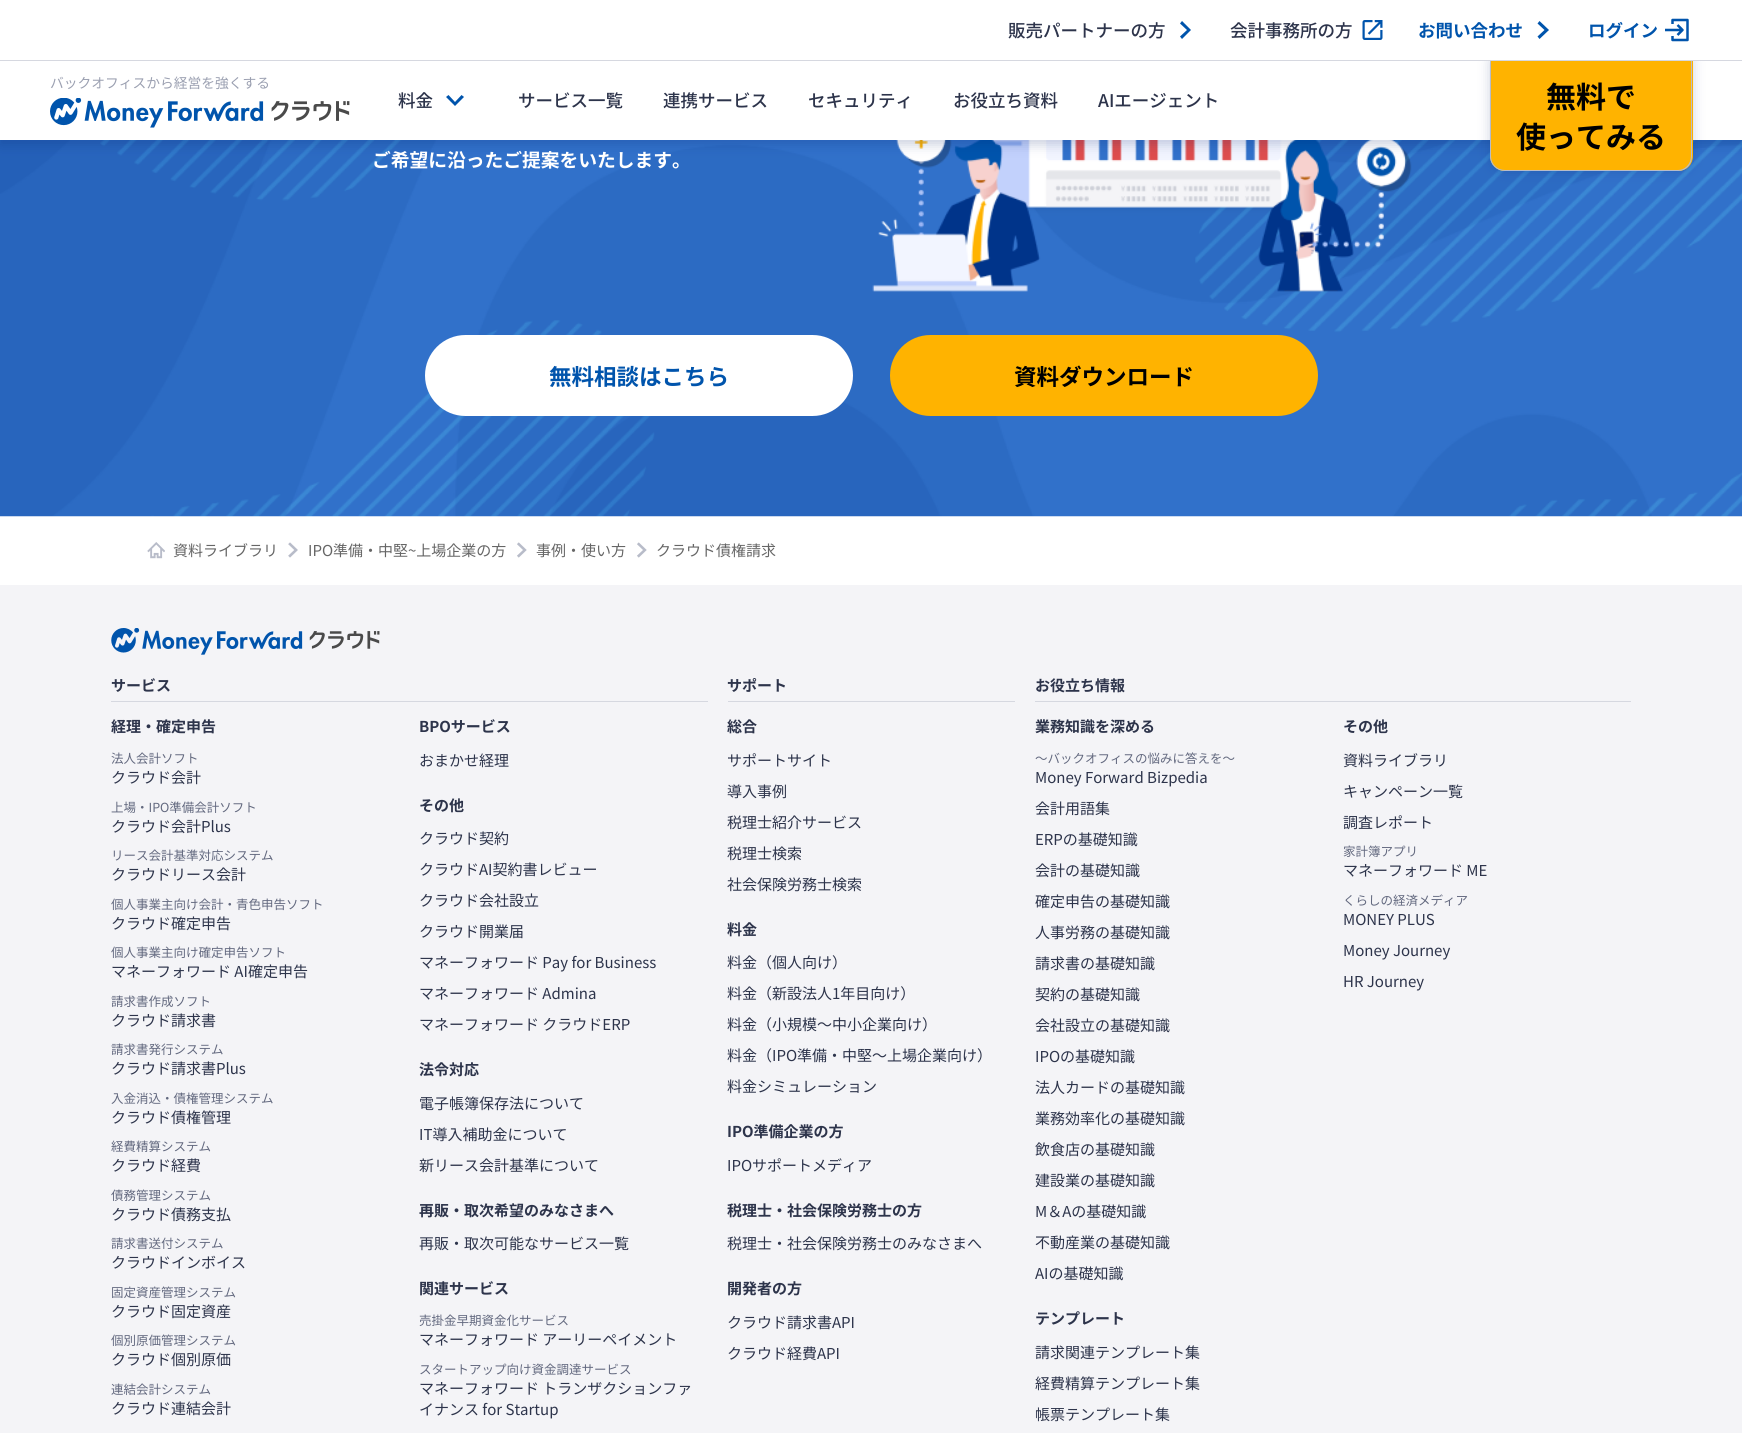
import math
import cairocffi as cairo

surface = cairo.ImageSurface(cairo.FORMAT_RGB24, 1742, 1433)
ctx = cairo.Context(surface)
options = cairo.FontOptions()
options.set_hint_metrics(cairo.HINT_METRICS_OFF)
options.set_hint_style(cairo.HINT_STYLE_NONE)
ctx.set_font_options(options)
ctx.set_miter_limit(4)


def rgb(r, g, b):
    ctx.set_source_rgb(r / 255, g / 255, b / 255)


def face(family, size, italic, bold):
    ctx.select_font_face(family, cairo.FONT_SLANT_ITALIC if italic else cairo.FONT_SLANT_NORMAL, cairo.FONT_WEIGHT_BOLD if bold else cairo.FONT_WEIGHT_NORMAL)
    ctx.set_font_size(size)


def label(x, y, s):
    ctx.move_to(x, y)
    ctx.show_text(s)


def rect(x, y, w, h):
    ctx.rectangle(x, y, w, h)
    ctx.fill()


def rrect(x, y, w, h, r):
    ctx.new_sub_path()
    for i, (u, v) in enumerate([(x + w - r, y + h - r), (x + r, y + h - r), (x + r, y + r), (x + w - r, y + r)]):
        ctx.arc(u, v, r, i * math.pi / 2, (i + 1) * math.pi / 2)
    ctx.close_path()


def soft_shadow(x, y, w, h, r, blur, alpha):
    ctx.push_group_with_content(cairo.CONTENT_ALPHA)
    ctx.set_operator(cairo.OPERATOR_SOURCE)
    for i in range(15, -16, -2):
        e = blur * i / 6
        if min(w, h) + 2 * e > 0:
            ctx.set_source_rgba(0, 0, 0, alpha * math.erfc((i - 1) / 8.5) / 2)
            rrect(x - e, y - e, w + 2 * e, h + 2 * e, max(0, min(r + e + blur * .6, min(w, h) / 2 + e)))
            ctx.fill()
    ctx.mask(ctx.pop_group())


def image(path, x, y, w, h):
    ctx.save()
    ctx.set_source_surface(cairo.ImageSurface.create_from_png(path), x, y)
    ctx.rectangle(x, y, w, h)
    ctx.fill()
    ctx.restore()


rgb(255, 255, 255)
ctx.paint()
image('image2.png', 0, 140, 1742, 377)
image('image3.png', 872, 140, 540, 152)
rgb(0, 26, 99)
soft_shadow(0, 5, 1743, 140, 0, 6, 0.2)
rgb(255, 255, 255)
rect(0, 61, 1742, 79)
rgb(0, 26, 99)
soft_shadow(1490, 49, 203, 122, 15, 6, 0.2)
rgb(255, 179, 0)
ctx.new_path()
ctx.move_to(1490, 49)
ctx.line_to(1693, 49)
ctx.line_to(1693, 156)
ctx.curve_to(1693, 164.5, 1686.5, 171, 1678, 171)
ctx.line_to(1505, 171)
ctx.curve_to(1496.5, 171, 1490, 164.5, 1490, 156)
ctx.close_path()
ctx.fill()
rgb(184, 188, 201)
ctx.set_fill_rule(cairo.FILL_RULE_EVEN_ODD)
ctx.new_path()
ctx.move_to(1490, 49)
ctx.line_to(1692, 49)
ctx.line_to(1692, 156)
ctx.curve_to(1692, 165, 1686, 171, 1678, 171)
ctx.line_to(1505, 171)
ctx.curve_to(1497, 171, 1490, 165, 1490, 156)
ctx.close_path()
ctx.move_to(1491, 49)
ctx.line_to(1691, 49)
ctx.line_to(1691, 156)
ctx.curve_to(1691, 164, 1685, 170, 1678, 170)
ctx.line_to(1505, 170)
ctx.curve_to(1497, 170, 1491, 164, 1491, 156)
ctx.close_path()
ctx.fill()
rgb(255, 255, 255)
rect(0, 0, 1742, 60)
rgb(214, 216, 224)
rect(0, 60, 1742, 1)
face('Noto Sans JP Medium', 17.5, 0, 0)
rgb(45, 52, 75)
label(1008, 37, '販売パートナーの方')
rgb(0, 84, 172)
ctx.new_path()
ctx.move_to(1180, 36.5)
ctx.line_to(1187, 30)
ctx.line_to(1180, 23.5)
ctx.line_to(1182, 21)
ctx.line_to(1191, 30)
ctx.line_to(1182, 39)
ctx.close_path()
ctx.fill()
rgb(45, 52, 75)
label(1230, 37, '会計事務所の方')
image('image0.png', 1362, 20, 21, 20)
face('Noto Sans JP', 17.5, 0, 1)
rgb(0, 84, 172)
label(1418, 37, 'お問い合わせ')
ctx.new_path()
ctx.move_to(1537.5, 36.5)
ctx.line_to(1544.5, 30)
ctx.line_to(1537.5, 23.5)
ctx.line_to(1539.5, 21)
ctx.line_to(1549, 30)
ctx.line_to(1539.5, 39)
ctx.close_path()
ctx.fill()
label(1588, 37, 'ログイン')
ctx.new_path()
ctx.move_to(1672.5, 24)
ctx.line_to(1672.5, 20)
ctx.line_to(1687.5, 20)
ctx.line_to(1687.5, 40)
ctx.line_to(1672.5, 40)
ctx.line_to(1672.5, 36)
ctx.move_to(1665, 30)
ctx.line_to(1682.5, 30)
ctx.move_to(1677.5, 25)
ctx.line_to(1682.5, 30)
ctx.line_to(1677.5, 35)
ctx.set_line_width(2.5)
ctx.set_line_join(cairo.LINE_JOIN_ROUND)
ctx.stroke()
face('Noto Sans JP', 13.75, 0, 0)
rgb(155, 160, 177)
label(50, 88, 'バックオフィスから経営を強くする')
image('image1.png', 50, 98, 300, 30)
face('Noto Sans JP Medium', 17.5, 0, 0)
rgb(45, 52, 75)
label(398, 107, '料金')
rgb(0, 84, 172)
ctx.new_path()
ctx.move_to(448.5, 95)
ctx.line_to(455, 102)
ctx.line_to(461.5, 95)
ctx.line_to(464, 97)
ctx.line_to(455, 106)
ctx.line_to(446, 97)
ctx.close_path()
ctx.fill()
rgb(45, 52, 75)
label(518, 107, 'サービス一覧')
label(663, 107, '連携サービス')
label(808, 107, 'セキュリティ')
label(953, 107, 'お役立ち資料')
label(1098, 107, 'AIエージェント')
face('Noto Sans JP', 30, 0, 1)
rgb(0, 0, 0)
label(1546, 108, '無料で')
label(1516, 148, '使ってみる')
face('Noto Sans JP', 18.75, 0, 1)
rgb(255, 255, 255)
label(372, 167, 'ご希望に沿ったご提案をいたします。')
rrect(425, 335, 428, 81, 40.5)
ctx.fill()
face('Noto Sans JP', 22.5, 0, 1)
rgb(0, 84, 172)
label(549, 385, '無料相談はこちら')
rgb(255, 179, 0)
rrect(890, 335, 428, 81, 40.5)
ctx.fill()
rgb(0, 0, 0)
label(1014, 385, '資料ダウンロード')
image('image4.png', 147, 542, 18, 17)
face('Noto Sans JP', 15, 0, 0)
rgb(102, 102, 102)
label(173, 556, '資料ライブラリ')
image('image5.png', 288, 542, 10, 16)
label(308, 556, 'IPO準備・中堅~上場企業の方')
image('image6.png', 517, 542, 10, 16)
label(536, 556, '事例・使い方')
image('image6.png', 637, 542, 10, 16)
label(656, 556, 'クラウド債権請求')
rgb(244, 244, 247)
rect(0, 585, 1742, 848)
image('image7.png', 111, 628, 269, 27)
rgb(214, 216, 224)
rect(111, 701, 597, 1)
face('Noto Sans JP', 15, 0, 1)
rgb(45, 52, 75)
label(111, 691, 'サービス')
label(111, 732, '経理・確定申告')
face('Noto Sans JP', 12.5, 0, 0)
rgb(99, 105, 127)
label(111, 763, '法人会計ソフト')
face('Noto Sans JP', 15, 0, 0)
rgb(45, 52, 75)
label(111, 783, 'クラウド会計')
face('Noto Sans JP', 12.5, 0, 0)
rgb(99, 105, 127)
label(111, 812, '上場・IPO準備会計ソフト')
face('Noto Sans JP', 15, 0, 0)
rgb(45, 52, 75)
label(111, 832, 'クラウド会計Plus')
face('Noto Sans JP', 12.5, 0, 0)
rgb(99, 105, 127)
label(111, 860, 'リース会計基準対応システム')
face('Noto Sans JP', 15, 0, 0)
rgb(45, 52, 75)
label(111, 880, 'クラウドリース会計')
face('Noto Sans JP', 12.5, 0, 0)
rgb(99, 105, 127)
label(111, 909, '個人事業主向け会計・青色申告ソフト')
face('Noto Sans JP', 15, 0, 0)
rgb(45, 52, 75)
label(111, 929, 'クラウド確定申告')
face('Noto Sans JP', 12.5, 0, 0)
rgb(99, 105, 127)
label(111, 957, '個人事業主向け確定申告ソフト')
face('Noto Sans JP', 15, 0, 0)
rgb(45, 52, 75)
label(111, 977, 'マネーフォワード AI確定申告')
face('Noto Sans JP', 12.5, 0, 0)
rgb(99, 105, 127)
label(111, 1006, '請求書作成ソフト')
face('Noto Sans JP', 15, 0, 0)
rgb(45, 52, 75)
label(111, 1026, 'クラウド請求書')
face('Noto Sans JP', 12.5, 0, 0)
rgb(99, 105, 127)
label(111, 1054, '請求書発行システム')
face('Noto Sans JP', 15, 0, 0)
rgb(45, 52, 75)
label(111, 1074, 'クラウド請求書Plus')
face('Noto Sans JP', 12.5, 0, 0)
rgb(99, 105, 127)
label(111, 1103, '入金消込・債権管理システム')
face('Noto Sans JP', 15, 0, 0)
rgb(45, 52, 75)
label(111, 1123, 'クラウド債権管理')
face('Noto Sans JP', 12.5, 0, 0)
rgb(99, 105, 127)
label(111, 1151, '経費精算システム')
face('Noto Sans JP', 15, 0, 0)
rgb(45, 52, 75)
label(111, 1171, 'クラウド経費')
face('Noto Sans JP', 12.5, 0, 0)
rgb(99, 105, 127)
label(111, 1200, '債務管理システム')
face('Noto Sans JP', 15, 0, 0)
rgb(45, 52, 75)
label(111, 1220, 'クラウド債務支払')
face('Noto Sans JP', 12.5, 0, 0)
rgb(99, 105, 127)
label(111, 1248, '請求書送付システム')
face('Noto Sans JP', 15, 0, 0)
rgb(45, 52, 75)
label(111, 1268, 'クラウドインボイス')
face('Noto Sans JP', 12.5, 0, 0)
rgb(99, 105, 127)
label(111, 1297, '固定資産管理システム')
face('Noto Sans JP', 15, 0, 0)
rgb(45, 52, 75)
label(111, 1317, 'クラウド固定資産')
face('Noto Sans JP', 12.5, 0, 0)
rgb(99, 105, 127)
label(111, 1345, '個別原価管理システム')
face('Noto Sans JP', 15, 0, 0)
rgb(45, 52, 75)
label(111, 1365, 'クラウド個別原価')
face('Noto Sans JP', 12.5, 0, 0)
rgb(99, 105, 127)
label(111, 1394, '連結会計システム')
face('Noto Sans JP', 15, 0, 0)
rgb(45, 52, 75)
label(111, 1414, 'クラウド連結会計')
face('Noto Sans JP', 15, 0, 1)
label(419, 732, 'BPOサービス')
face('Noto Sans JP', 15, 0, 0)
label(419, 766, 'おまかせ経理')
face('Noto Sans JP', 15, 0, 1)
label(419, 811, 'その他')
face('Noto Sans JP', 15, 0, 0)
label(419, 844, 'クラウド契約')
label(419, 875, 'クラウドAI契約書レビュー')
label(419, 906, 'クラウド会社設立')
label(419, 937, 'クラウド開業届')
label(419, 968, 'マネーフォワード Pay for Business')
label(419, 999, 'マネーフォワード Admina')
label(419, 1030, 'マネーフォワード クラウドERP')
face('Noto Sans JP', 15, 0, 1)
label(419, 1075, '法令対応')
face('Noto Sans JP', 15, 0, 0)
label(419, 1109, '電子帳簿保存法について')
label(419, 1140, 'IT導入補助金について')
label(419, 1171, '新リース会計基準について')
face('Noto Sans JP', 15, 0, 1)
label(419, 1216, '再販・取次希望のみなさまへ')
face('Noto Sans JP', 15, 0, 0)
label(419, 1249, '再販・取次可能なサービス一覧')
face('Noto Sans JP', 15, 0, 1)
label(419, 1294, '関連サービス')
face('Noto Sans JP', 12.5, 0, 0)
rgb(99, 105, 127)
label(419, 1325, '売掛金早期資金化サービス')
face('Noto Sans JP', 15, 0, 0)
rgb(45, 52, 75)
label(419, 1345, 'マネーフォワード アーリーペイメント')
face('Noto Sans JP', 12.5, 0, 0)
rgb(99, 105, 127)
label(419, 1374, 'スタートアップ向け資金調達サービス')
face('Noto Sans JP', 15, 0, 0)
rgb(45, 52, 75)
label(419, 1394, 'マネーフォワード トランザクションファ')
label(419, 1415, 'イナンス for Startup')
rgb(214, 216, 224)
rect(728, 701, 287, 1)
face('Noto Sans JP', 15, 0, 1)
rgb(45, 52, 75)
label(727, 691, 'サポート')
label(727, 732, '総合')
face('Noto Sans JP', 15, 0, 0)
label(727, 766, 'サポートサイト')
label(727, 797, '導入事例')
label(727, 828, '税理士紹介サービス')
label(727, 859, '税理士検索')
label(727, 890, '社会保険労務士検索')
face('Noto Sans JP', 15, 0, 1)
label(727, 935, '料金')
face('Noto Sans JP', 15, 0, 0)
label(727, 968, '料金（個人向け）')
label(727, 999, '料金（新設法人1年目向け）')
label(727, 1030, '料金（小規模〜中小企業向け）')
label(727, 1061, '料金（IPO準備・中堅〜上場企業向け）')
label(727, 1092, '料金シミュレーション')
face('Noto Sans JP', 15, 0, 1)
label(727, 1137, 'IPO準備企業の方')
face('Noto Sans JP', 15, 0, 0)
label(727, 1171, 'IPOサポートメディア')
face('Noto Sans JP', 15, 0, 1)
label(727, 1216, '税理士・社会保険労務士の方')
face('Noto Sans JP', 15, 0, 0)
label(727, 1249, '税理士・社会保険労務士のみなさまへ')
face('Noto Sans JP', 15, 0, 1)
label(727, 1294, '開発者の方')
face('Noto Sans JP', 15, 0, 0)
label(727, 1328, 'クラウド請求書API')
label(727, 1359, 'クラウド経費API')
rgb(214, 216, 224)
rect(1035, 701, 596, 1)
face('Noto Sans JP', 15, 0, 1)
rgb(45, 52, 75)
label(1035, 691, 'お役立ち情報')
label(1035, 732, '業務知識を深める')
face('Noto Sans JP', 12.5, 0, 0)
rgb(99, 105, 127)
label(1035, 763, '〜バックオフィスの悩みに答えを〜')
face('Noto Sans JP', 15, 0, 0)
rgb(45, 52, 75)
label(1035, 783, 'Money Forward Bizpedia')
label(1035, 814, '会計用語集')
label(1035, 845, 'ERPの基礎知識')
label(1035, 876, '会計の基礎知識')
label(1035, 907, '確定申告の基礎知識')
label(1035, 938, '人事労務の基礎知識')
label(1035, 969, '請求書の基礎知識')
label(1035, 1000, '契約の基礎知識')
label(1035, 1031, '会社設立の基礎知識')
label(1035, 1062, 'IPOの基礎知識')
label(1035, 1093, '法人カードの基礎知識')
label(1035, 1124, '業務効率化の基礎知識')
label(1035, 1155, '飲食店の基礎知識')
label(1035, 1186, '建設業の基礎知識')
label(1035, 1217, 'M＆Aの基礎知識')
label(1035, 1248, '不動産業の基礎知識')
label(1035, 1279, 'AIの基礎知識')
face('Noto Sans JP', 15, 0, 1)
label(1035, 1324, 'テンプレート')
face('Noto Sans JP', 15, 0, 0)
label(1035, 1358, '請求関連テンプレート集')
label(1035, 1389, '経費精算テンプレート集')
label(1035, 1420, '帳票テンプレート集')
face('Noto Sans JP', 15, 0, 1)
label(1343, 732, 'その他')
face('Noto Sans JP', 15, 0, 0)
label(1343, 766, '資料ライブラリ')
label(1343, 797, 'キャンペーン一覧')
label(1343, 828, '調査レポート')
face('Noto Sans JP', 12.5, 0, 0)
rgb(99, 105, 127)
label(1343, 856, '家計簿アプリ')
face('Noto Sans JP', 15, 0, 0)
rgb(45, 52, 75)
label(1343, 876, 'マネーフォワード ME')
face('Noto Sans JP', 12.5, 0, 0)
rgb(99, 105, 127)
label(1343, 905, 'くらしの経済メディア')
face('Noto Sans JP', 15, 0, 0)
rgb(45, 52, 75)
label(1343, 925, 'MONEY PLUS')
label(1343, 956, 'Money Journey')
label(1343, 987, 'HR Journey')
surface.write_to_png('render.png')
